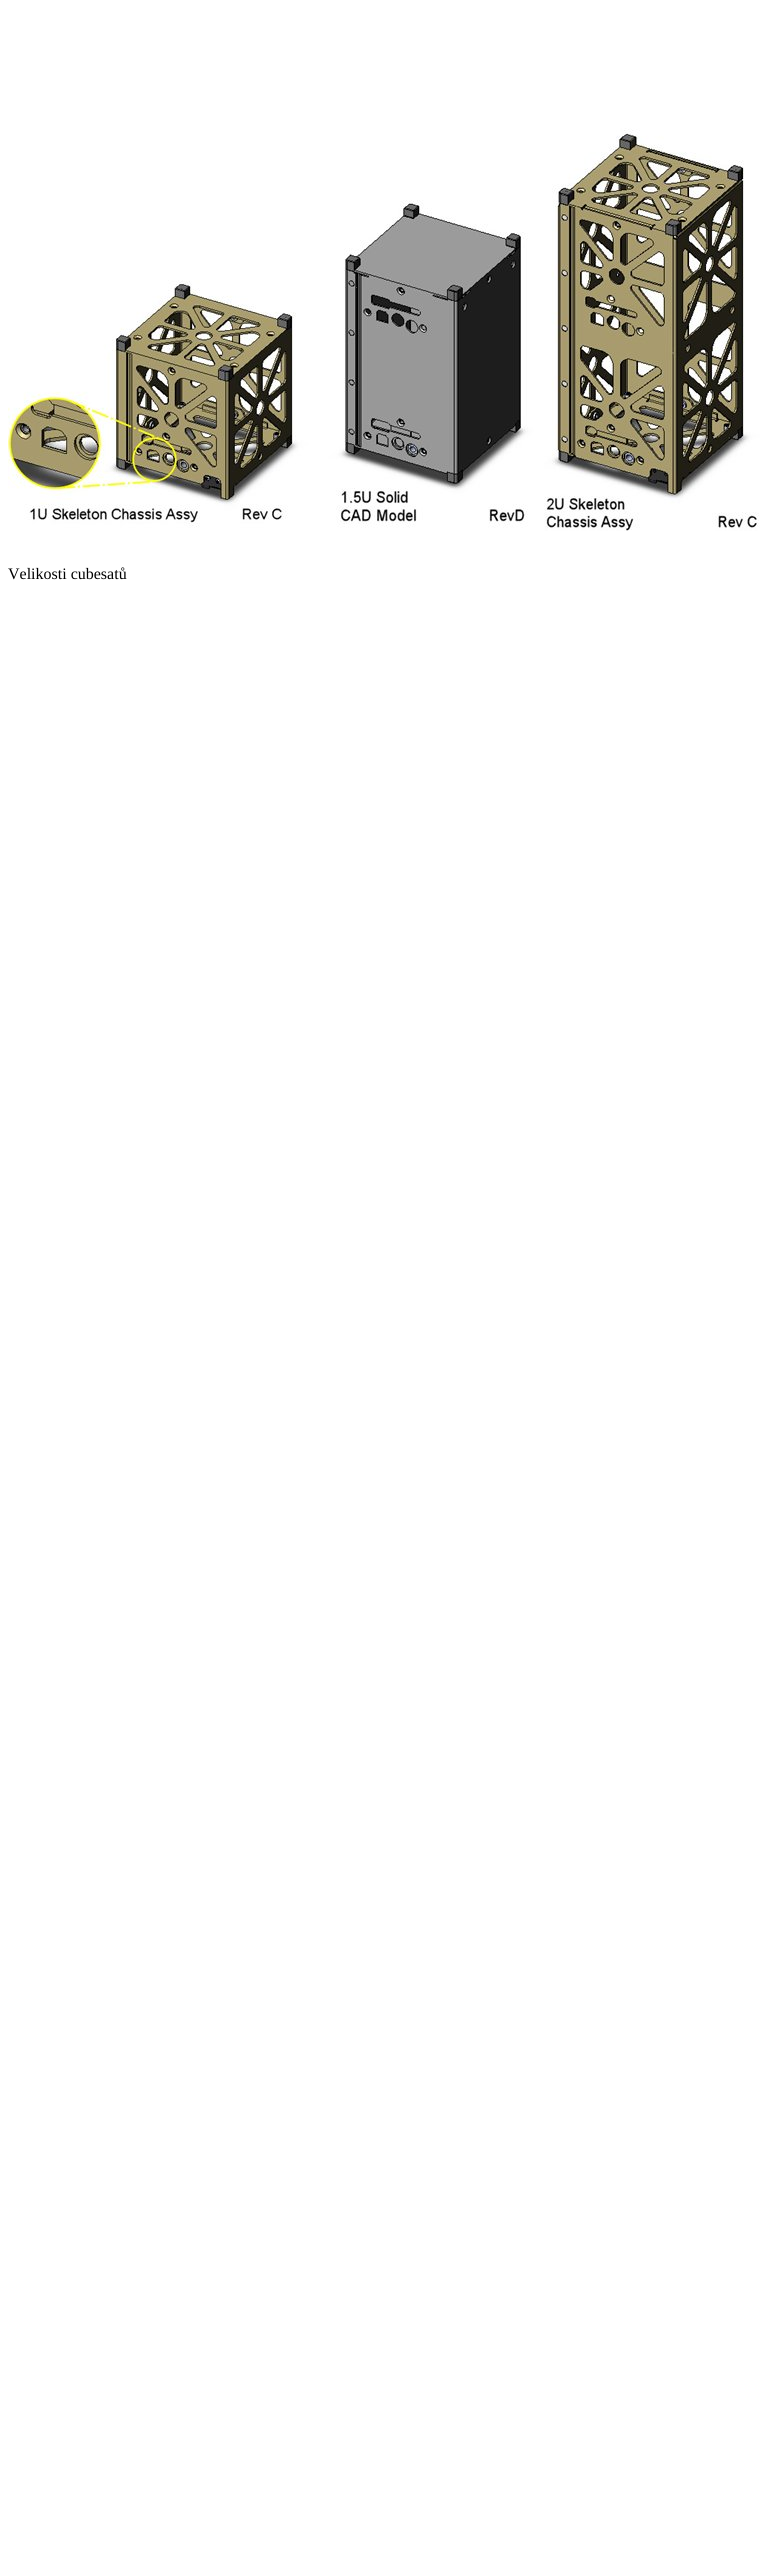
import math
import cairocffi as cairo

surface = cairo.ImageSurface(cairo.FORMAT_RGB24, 763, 2554)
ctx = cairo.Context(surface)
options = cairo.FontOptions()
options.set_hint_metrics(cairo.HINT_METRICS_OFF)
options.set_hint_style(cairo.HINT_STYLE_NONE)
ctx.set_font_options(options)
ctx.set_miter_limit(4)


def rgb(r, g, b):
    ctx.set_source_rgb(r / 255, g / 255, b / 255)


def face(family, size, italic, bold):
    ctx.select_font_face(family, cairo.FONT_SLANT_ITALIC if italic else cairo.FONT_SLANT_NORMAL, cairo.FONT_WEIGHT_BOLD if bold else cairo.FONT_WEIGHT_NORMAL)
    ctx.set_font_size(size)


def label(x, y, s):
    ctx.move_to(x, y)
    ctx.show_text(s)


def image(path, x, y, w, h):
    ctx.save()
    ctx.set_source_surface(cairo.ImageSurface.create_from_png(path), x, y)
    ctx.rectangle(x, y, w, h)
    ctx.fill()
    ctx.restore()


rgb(255, 255, 255)
ctx.paint()
image('image0.png', 8, 128, 752, 403)
face('Liberation Serif', 16, 0, 0)
rgb(0, 0, 0)
label(8, 579, 'Velikosti cubesatů')
surface.write_to_png('render.png')
